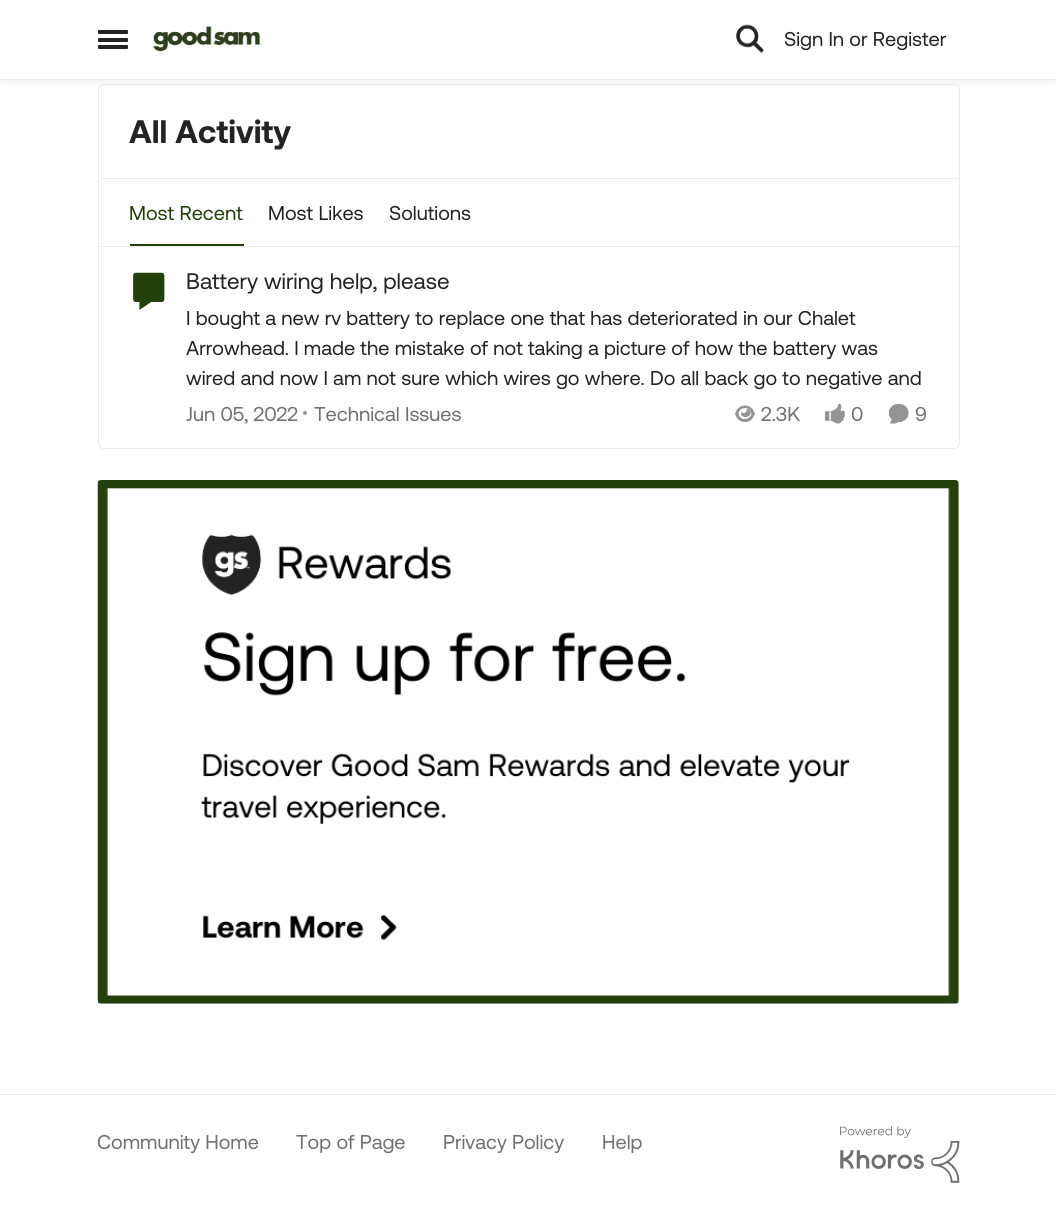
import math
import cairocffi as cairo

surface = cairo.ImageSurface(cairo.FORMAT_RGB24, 1056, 1214)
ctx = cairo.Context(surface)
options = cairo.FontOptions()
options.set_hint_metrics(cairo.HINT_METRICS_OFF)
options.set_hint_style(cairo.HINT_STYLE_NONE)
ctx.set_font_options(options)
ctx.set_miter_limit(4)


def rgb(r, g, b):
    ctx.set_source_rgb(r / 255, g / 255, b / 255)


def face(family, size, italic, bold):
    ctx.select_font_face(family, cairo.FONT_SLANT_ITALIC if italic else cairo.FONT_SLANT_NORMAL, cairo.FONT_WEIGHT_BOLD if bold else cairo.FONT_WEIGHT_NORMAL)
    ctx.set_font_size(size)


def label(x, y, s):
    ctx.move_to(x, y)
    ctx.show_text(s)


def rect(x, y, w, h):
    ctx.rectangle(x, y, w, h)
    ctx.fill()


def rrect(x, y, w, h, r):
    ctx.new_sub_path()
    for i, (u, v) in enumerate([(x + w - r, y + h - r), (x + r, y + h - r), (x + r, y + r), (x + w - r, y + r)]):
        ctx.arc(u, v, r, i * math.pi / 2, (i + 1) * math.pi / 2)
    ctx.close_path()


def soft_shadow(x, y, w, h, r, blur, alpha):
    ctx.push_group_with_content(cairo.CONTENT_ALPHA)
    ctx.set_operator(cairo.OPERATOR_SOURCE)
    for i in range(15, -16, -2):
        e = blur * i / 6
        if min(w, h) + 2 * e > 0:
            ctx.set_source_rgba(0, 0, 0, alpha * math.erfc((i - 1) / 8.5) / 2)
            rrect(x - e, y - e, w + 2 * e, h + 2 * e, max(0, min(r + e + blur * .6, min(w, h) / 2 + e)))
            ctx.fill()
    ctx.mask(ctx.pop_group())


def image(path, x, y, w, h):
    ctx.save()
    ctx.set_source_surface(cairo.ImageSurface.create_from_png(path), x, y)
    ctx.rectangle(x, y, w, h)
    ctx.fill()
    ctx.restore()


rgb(255, 255, 255)
ctx.paint()
rrect(98.5, 84.5, 861, 364, 5.5)
rgb(235, 235, 235)
ctx.set_line_width(1)
ctx.stroke()
rgb(51, 51, 51)
soft_shadow(0, 3, 1056, 80, 0, 2.5, 0.06)
rgb(255, 255, 255)
rect(0, 1, 1056, 78)
rgb(235, 235, 235)
rect(0, 79, 1056, 1)
rgb(35, 35, 35)
rrect(98, 30, 30, 4, 1)
ctx.fill()
rrect(98, 38, 30, 4, 1)
ctx.fill()
rrect(98, 45, 30, 4, 1)
ctx.fill()
image('image0.png', 153, 26, 109, 26)
image('image1.png', 736, 24, 28, 29)
face('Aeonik', 20, 0, 0)
label(784, 46, 'Sign In or Register')
rgb(235, 235, 235)
rect(99, 178, 860, 1)
face('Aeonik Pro', 32.5, 0, 1)
rgb(35, 35, 35)
label(129, 143, 'All Activity')
rgb(235, 235, 235)
rect(99, 246, 860, 1)
face('Aeonik', 20, 0, 0)
rgb(35, 65, 10)
label(129, 220, 'Most Recent')
rect(130, 244, 114, 2)
rgb(35, 35, 35)
label(268, 220, 'Most Likes')
label(389, 220, 'Solutions')
image('image2.png', 133, 272, 32, 38)
face('Aeonik', 22.5, 0, 0)
label(186, 289, 'Battery wiring help, please')
face('Aeonik', 20, 0, 0)
label(186, 325, 'I bought a new rv battery to replace one that has deteriorated in our Chalet')
label(186, 355, 'Arrowhead. I made the mistake of not taking a picture of how the battery was')
label(186, 385, 'wired and now I am not sure which wires go where. Do all back go to negative and')
rgb(112, 112, 112)
label(186, 421, 'Jun 05, 2022')
rgb(148, 148, 148)
ctx.new_path()
ctx.arc(305, 413, 2, 0, 2 * math.pi)
ctx.fill()
rgb(112, 112, 112)
label(314, 421, 'Technical Issues')
image('image3.png', 735, 405, 20, 17)
label(761, 421, '2.3K')
image('image4.png', 825, 403, 20, 21)
label(851, 421, '0')
image('image5.png', 888, 403, 21, 21)
label(915, 421, '9')
image('image6.png', 97, 480, 862, 524)
rgb(235, 235, 235)
rect(0, 1094, 1056, 1)
rgb(112, 112, 112)
label(97, 1149, 'Community Home')
label(296, 1149, 'Top of Page')
label(443, 1149, 'Privacy Policy')
label(602, 1149, 'Help')
image('image7.png', 840, 1126, 120, 57)
surface.write_to_png('render.png')
